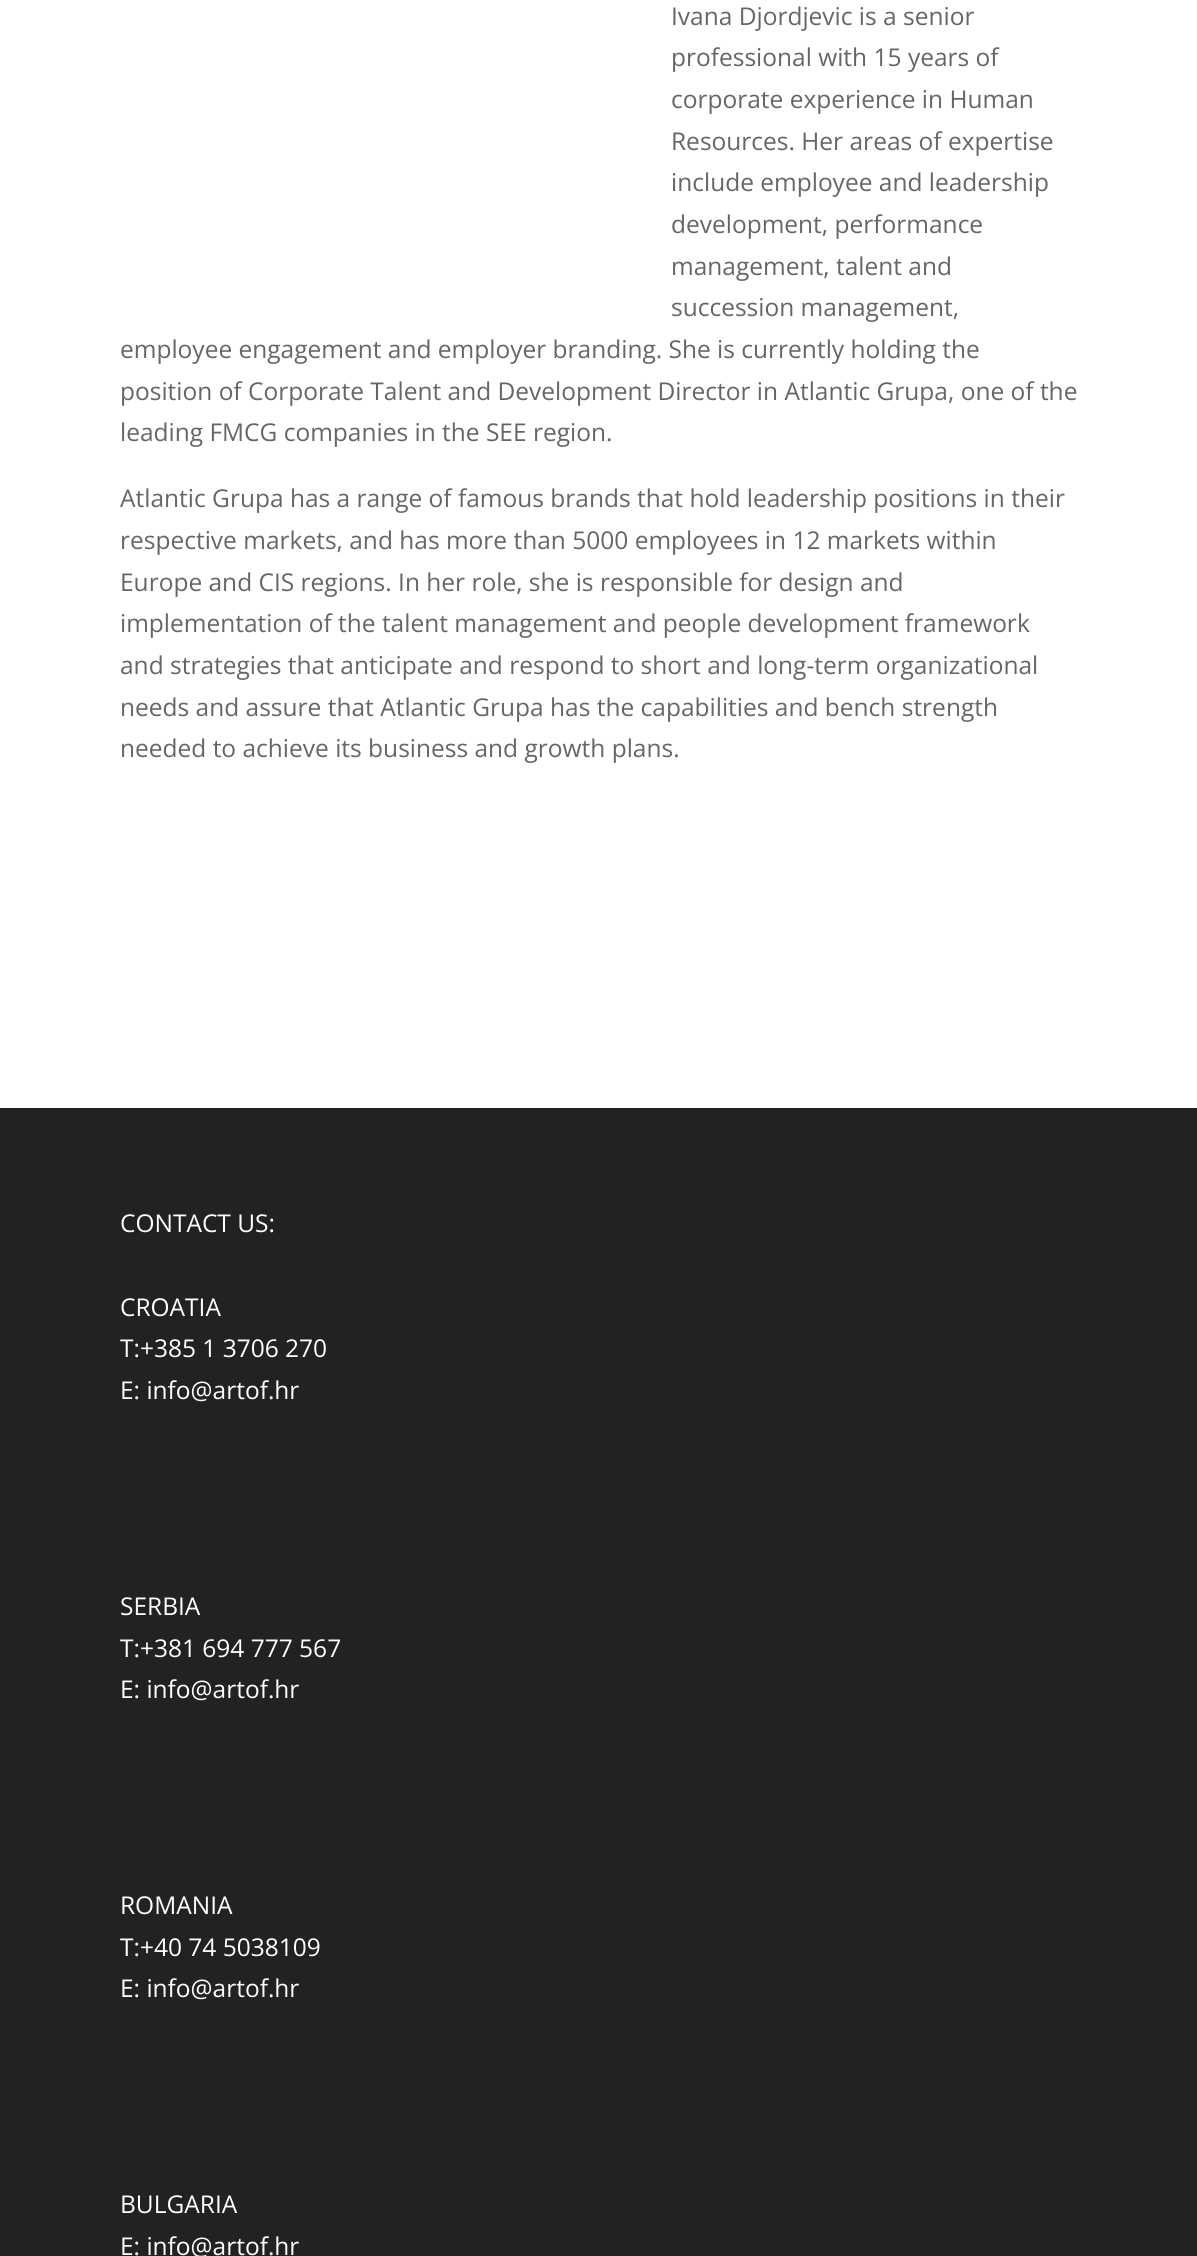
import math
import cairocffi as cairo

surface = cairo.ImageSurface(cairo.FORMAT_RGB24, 1197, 2256)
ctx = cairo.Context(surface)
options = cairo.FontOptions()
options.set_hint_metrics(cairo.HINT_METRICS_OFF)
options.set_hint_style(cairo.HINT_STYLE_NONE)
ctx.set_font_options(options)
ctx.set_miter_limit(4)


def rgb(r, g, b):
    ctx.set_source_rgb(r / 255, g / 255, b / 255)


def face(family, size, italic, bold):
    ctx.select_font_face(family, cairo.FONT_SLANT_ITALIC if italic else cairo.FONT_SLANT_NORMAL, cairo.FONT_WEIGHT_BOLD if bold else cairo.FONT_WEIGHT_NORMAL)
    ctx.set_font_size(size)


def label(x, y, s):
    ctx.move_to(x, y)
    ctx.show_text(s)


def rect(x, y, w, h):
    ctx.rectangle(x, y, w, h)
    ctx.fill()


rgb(255, 255, 255)
ctx.paint()
face('Open Sans', 24.5, 0, 0)
rgb(102, 102, 102)
label(671, 25, 'Ivana Djordjevic is a senior')
label(671, 66, 'professional with 15 years of')
label(671, 108, 'corporate experience in Human')
label(671, 150, 'Resources. Her areas of expertise')
label(671, 191, 'include employee and leadership')
label(671, 233, 'development, performance')
label(671, 275, 'management, talent and')
label(671, 316, 'succession management,')
label(120, 358, 'employee engagement and employer branding. She is currently holding the')
label(120, 400, 'position of Corporate Talent and Development Director in Atlantic Grupa, one of the')
label(120, 441, 'leading FMCG companies in the SEE region.')
label(120, 507, 'Atlantic Grupa has a range of famous brands that hold leadership positions in their')
label(120, 549, 'respective markets, and has more than 5000 employees in 12 markets within')
label(120, 591, 'Europe and CIS regions. In her role, she is responsible for design and')
label(120, 632, 'implementation of the talent management and people development framework')
label(120, 674, 'and strategies that anticipate and respond to short and long-term organizational')
label(120, 716, 'needs and assure that Atlantic Grupa has the capabilities and bench strength')
label(120, 757, 'needed to achieve its business and growth plans.')
rgb(34, 34, 34)
rect(0, 1108, 1197, 1148)
rgb(255, 255, 255)
label(120, 1232, 'CONTACT US:')
label(120, 1316, 'CROATIA')
label(120, 1357, 'T:+385 1 3706 270')
label(120, 1399, 'E: info@artof.hr')
label(120, 1615, 'SERBIA')
label(120, 1657, 'T:+381 694 777 567')
label(120, 1698, 'E: info@artof.hr')
label(120, 1914, 'ROMANIA')
label(120, 1956, 'T:+40 74 5038109')
label(120, 1997, 'E: info@artof.hr')
label(120, 2213, 'BULGARIA')
label(120, 2255, 'E: info@artof.hr')
surface.write_to_png('render.png')
